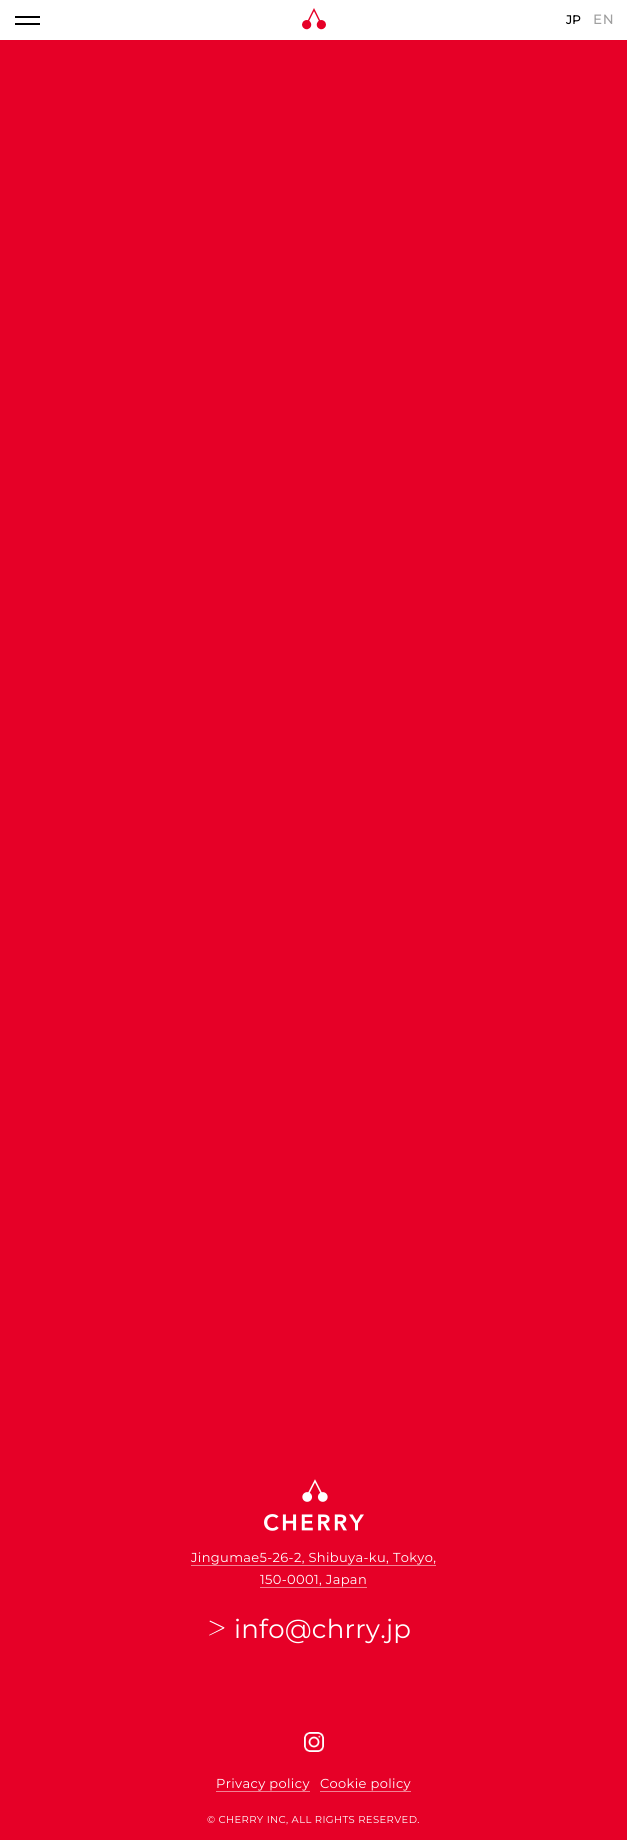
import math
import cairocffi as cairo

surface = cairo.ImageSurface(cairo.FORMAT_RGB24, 627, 1840)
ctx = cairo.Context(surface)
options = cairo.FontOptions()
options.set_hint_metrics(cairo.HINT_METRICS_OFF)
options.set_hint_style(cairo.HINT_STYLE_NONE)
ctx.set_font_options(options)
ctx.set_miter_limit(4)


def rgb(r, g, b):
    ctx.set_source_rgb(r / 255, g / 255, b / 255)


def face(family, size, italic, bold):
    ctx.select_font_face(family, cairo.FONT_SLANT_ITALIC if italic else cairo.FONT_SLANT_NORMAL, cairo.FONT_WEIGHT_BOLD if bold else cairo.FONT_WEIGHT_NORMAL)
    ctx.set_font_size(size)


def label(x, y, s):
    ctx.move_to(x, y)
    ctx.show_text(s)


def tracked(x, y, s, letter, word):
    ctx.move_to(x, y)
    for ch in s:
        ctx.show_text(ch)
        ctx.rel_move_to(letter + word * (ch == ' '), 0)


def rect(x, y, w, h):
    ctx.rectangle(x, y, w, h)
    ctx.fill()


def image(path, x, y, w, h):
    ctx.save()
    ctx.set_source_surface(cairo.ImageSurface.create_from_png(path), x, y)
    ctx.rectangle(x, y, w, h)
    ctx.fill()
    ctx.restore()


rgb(230, 0, 39)
ctx.paint()
rgb(255, 255, 255)
rect(0, 0, 627, 40)
rgb(0, 0, 0)
rect(15, 16, 25, 2)
rect(15, 23, 25, 2)
image('image0.png', 302, 8, 24, 22)
face('Montserrat', 12, 0, 1)
label(566, 24, 'JP')
face('Montserrat', 13, 0, 1)
rgb(160, 160, 160)
tracked(593, 24, 'EN', 1, 0)
image('image1.png', 264, 1479, 100, 52)
face('Montserrat Thin', 13, 0, 0)
rgb(255, 255, 255)
tracked(191, 1562, 'Jingumae5-26-2, Shibuya-ku, Tokyo,', 0.35, 0)
rgb(243, 128, 147)
rect(191, 1565, 245, 1)
rgb(255, 255, 255)
tracked(260, 1584, '150-0001, Japan', 0.35, 0)
rgb(243, 128, 147)
rect(260, 1587, 107, 1)
rgb(255, 255, 255)
ctx.new_path()
ctx.move_to(210, 1620.5)
ctx.line_to(224.5, 1627.5)
ctx.line_to(224, 1628.5)
ctx.line_to(209.5, 1621.5)
ctx.close_path()
ctx.fill()
face('Montserrat Thin', 26, 0, 0)
tracked(234, 1638, 'info@chrry.jp', 0.25, 0)
ctx.new_path()
ctx.move_to(209, 1635)
ctx.line_to(223.5, 1627.5)
ctx.line_to(224, 1628.5)
ctx.line_to(209.5, 1635.5)
ctx.close_path()
ctx.fill()
image('image2.png', 304, 1732, 20, 20)
face('Montserrat Thin', 13, 0, 0)
tracked(216, 1788, 'Privacy policy', 0.35, 0)
rgb(243, 128, 147)
rect(216, 1791, 94, 1)
rgb(255, 255, 255)
tracked(320, 1788, 'Cookie policy', 0.35, 0)
rgb(243, 128, 147)
rect(320, 1791, 91, 1)
face('Montserrat Thin', 10, 0, 0)
rgb(255, 255, 255)
tracked(207, 1823, '© CHERRY INC, ALL RIGHTS RESERVED.', 0.4, 0)
surface.write_to_png('render.png')
